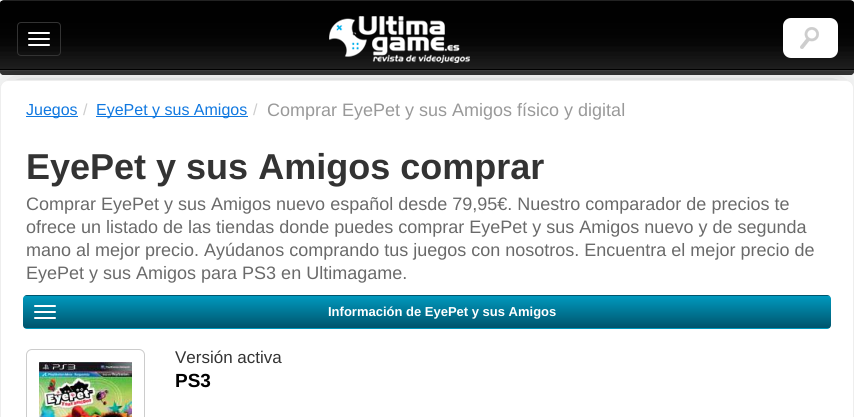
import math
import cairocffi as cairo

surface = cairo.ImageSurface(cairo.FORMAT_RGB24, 854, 417)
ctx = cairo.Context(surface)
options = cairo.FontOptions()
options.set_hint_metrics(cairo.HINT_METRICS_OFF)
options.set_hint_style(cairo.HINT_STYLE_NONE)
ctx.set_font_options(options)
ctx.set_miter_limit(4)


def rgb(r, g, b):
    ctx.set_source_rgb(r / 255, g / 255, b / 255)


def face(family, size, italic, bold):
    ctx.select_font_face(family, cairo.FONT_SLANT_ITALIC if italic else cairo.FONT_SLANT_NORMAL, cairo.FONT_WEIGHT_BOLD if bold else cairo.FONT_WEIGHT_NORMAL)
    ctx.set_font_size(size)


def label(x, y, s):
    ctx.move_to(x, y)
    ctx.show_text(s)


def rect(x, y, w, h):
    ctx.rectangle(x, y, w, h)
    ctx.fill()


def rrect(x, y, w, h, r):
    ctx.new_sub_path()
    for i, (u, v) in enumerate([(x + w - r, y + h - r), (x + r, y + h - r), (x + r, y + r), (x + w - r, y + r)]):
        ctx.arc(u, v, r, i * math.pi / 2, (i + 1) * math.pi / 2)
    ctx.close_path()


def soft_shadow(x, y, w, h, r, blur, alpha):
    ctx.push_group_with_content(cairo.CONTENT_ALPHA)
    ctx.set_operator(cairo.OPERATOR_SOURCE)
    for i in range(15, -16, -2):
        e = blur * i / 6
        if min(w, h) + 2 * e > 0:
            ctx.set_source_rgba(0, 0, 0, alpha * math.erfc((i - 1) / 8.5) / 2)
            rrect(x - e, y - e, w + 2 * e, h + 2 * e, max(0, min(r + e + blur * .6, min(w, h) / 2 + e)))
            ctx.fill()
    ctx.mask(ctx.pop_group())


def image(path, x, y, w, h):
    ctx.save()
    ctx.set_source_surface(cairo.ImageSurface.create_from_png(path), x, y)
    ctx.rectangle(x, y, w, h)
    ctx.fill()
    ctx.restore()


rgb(244, 245, 245)
ctx.paint()
rgb(34, 34, 34)
rrect(0, 0, 854, 75, 4)
ctx.fill()
image('image0.png', 0, 1, 854, 74)
rrect(17.5, 22.5, 43, 33, 3.5)
rgb(51, 51, 51)
ctx.set_line_width(1)
ctx.stroke()
rgb(255, 255, 255)
rrect(28, 32, 22, 2, 1)
ctx.fill()
rrect(28, 38, 22, 2, 1)
ctx.fill()
rrect(28, 44, 22, 2, 1)
ctx.fill()
rgb(0, 0, 0)
soft_shadow(18, 98, 818, 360, 0, 13.5, 1)
image('image1.png', 329, 16, 141, 47)
rgb(255, 255, 255)
rrect(783, 18, 55, 40, 8)
ctx.fill()
image('image2.png', 800, 27, 19, 22)
rrect(0.5, 80.5, 853, 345, 7.5)
ctx.fill_preserve()
rgb(238, 238, 238)
ctx.stroke()
rgb(16, 120, 224)
rect(26, 116, 52, 1)
face('Liberation Sans', 16, 0, 0)
label(26, 115, 'Juegos')
rgb(204, 204, 204)
label(83, 115, '/')
rgb(16, 120, 224)
rect(96, 116, 152, 1)
label(96, 115, 'EyePet y sus Amigos')
rgb(204, 204, 204)
label(253, 115, '/')
face('Liberation Sans', 18, 0, 0)
rgb(153, 153, 153)
label(267, 116, 'Comprar EyePet y sus Amigos físico y digital')
face('Liberation Sans', 36, 0, 1)
rgb(51, 51, 51)
label(26, 179, 'EyePet y sus Amigos comprar')
face('Liberation Sans', 18, 0, 0)
rgb(106, 106, 106)
label(26, 210, 'Comprar EyePet y sus Amigos nuevo español desde 79,95€. Nuestro comparador de precios te')
label(26, 233, 'ofrece un listado de las tiendas donde puedes comprar EyePet y sus Amigos nuevo y de segunda')
label(26, 256, 'mano al mejor precio. Ayúdanos comprando tus juegos con nosotros. Encuentra el mejor precio de')
label(26, 279, 'EyePet y sus Amigos para PS3 en Ultimagame.')
ctx.save()
rrect(23, 295, 808, 34, 4)
ctx.clip()
gradient = cairo.LinearGradient(427, 264, 427, 296)
gradient.add_color_stop_rgba(0, 0, 0.6, 0.745, 1)
gradient.add_color_stop_rgba(1, 0, 0.329, 0.424, 1)
ctx.set_source(gradient)
rect(23, 295, 808, 1)
gradient = cairo.LinearGradient(427, 296, 427, 328)
gradient.add_color_stop_rgba(0, 0, 0.6, 0.745, 1)
gradient.add_color_stop_rgba(1, 0, 0.329, 0.424, 1)
ctx.set_source(gradient)
rect(23, 296, 808, 32)
gradient = cairo.LinearGradient(427, 328, 427, 360)
gradient.add_color_stop_rgba(0, 0, 0.6, 0.745, 1)
gradient.add_color_stop_rgba(1, 0, 0.329, 0.424, 1)
ctx.set_source(gradient)
rect(23, 328, 808, 1)
ctx.restore()
rgb(255, 255, 255)
rrect(34, 305, 22, 2, 1)
ctx.fill()
rrect(34, 311, 22, 2, 1)
ctx.fill()
rrect(34, 317, 22, 2, 1)
ctx.fill()
face('Liberation Sans', 13, 0, 1)
label(328, 316, 'Información de EyePet y sus Amigos')
rrect(26.5, 349.5, 118, 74, 5.5)
rgb(204, 204, 204)
ctx.stroke()
image('image3.png', 39, 362, 93, 55)
face('Liberation Sans', 17, 0, 0)
rgb(51, 51, 51)
label(175, 363, 'Versión activa')
face('Liberation Sans', 19, 0, 1)
rgb(0, 0, 0)
label(175, 387, 'PS3')
surface.write_to_png('render.png')
